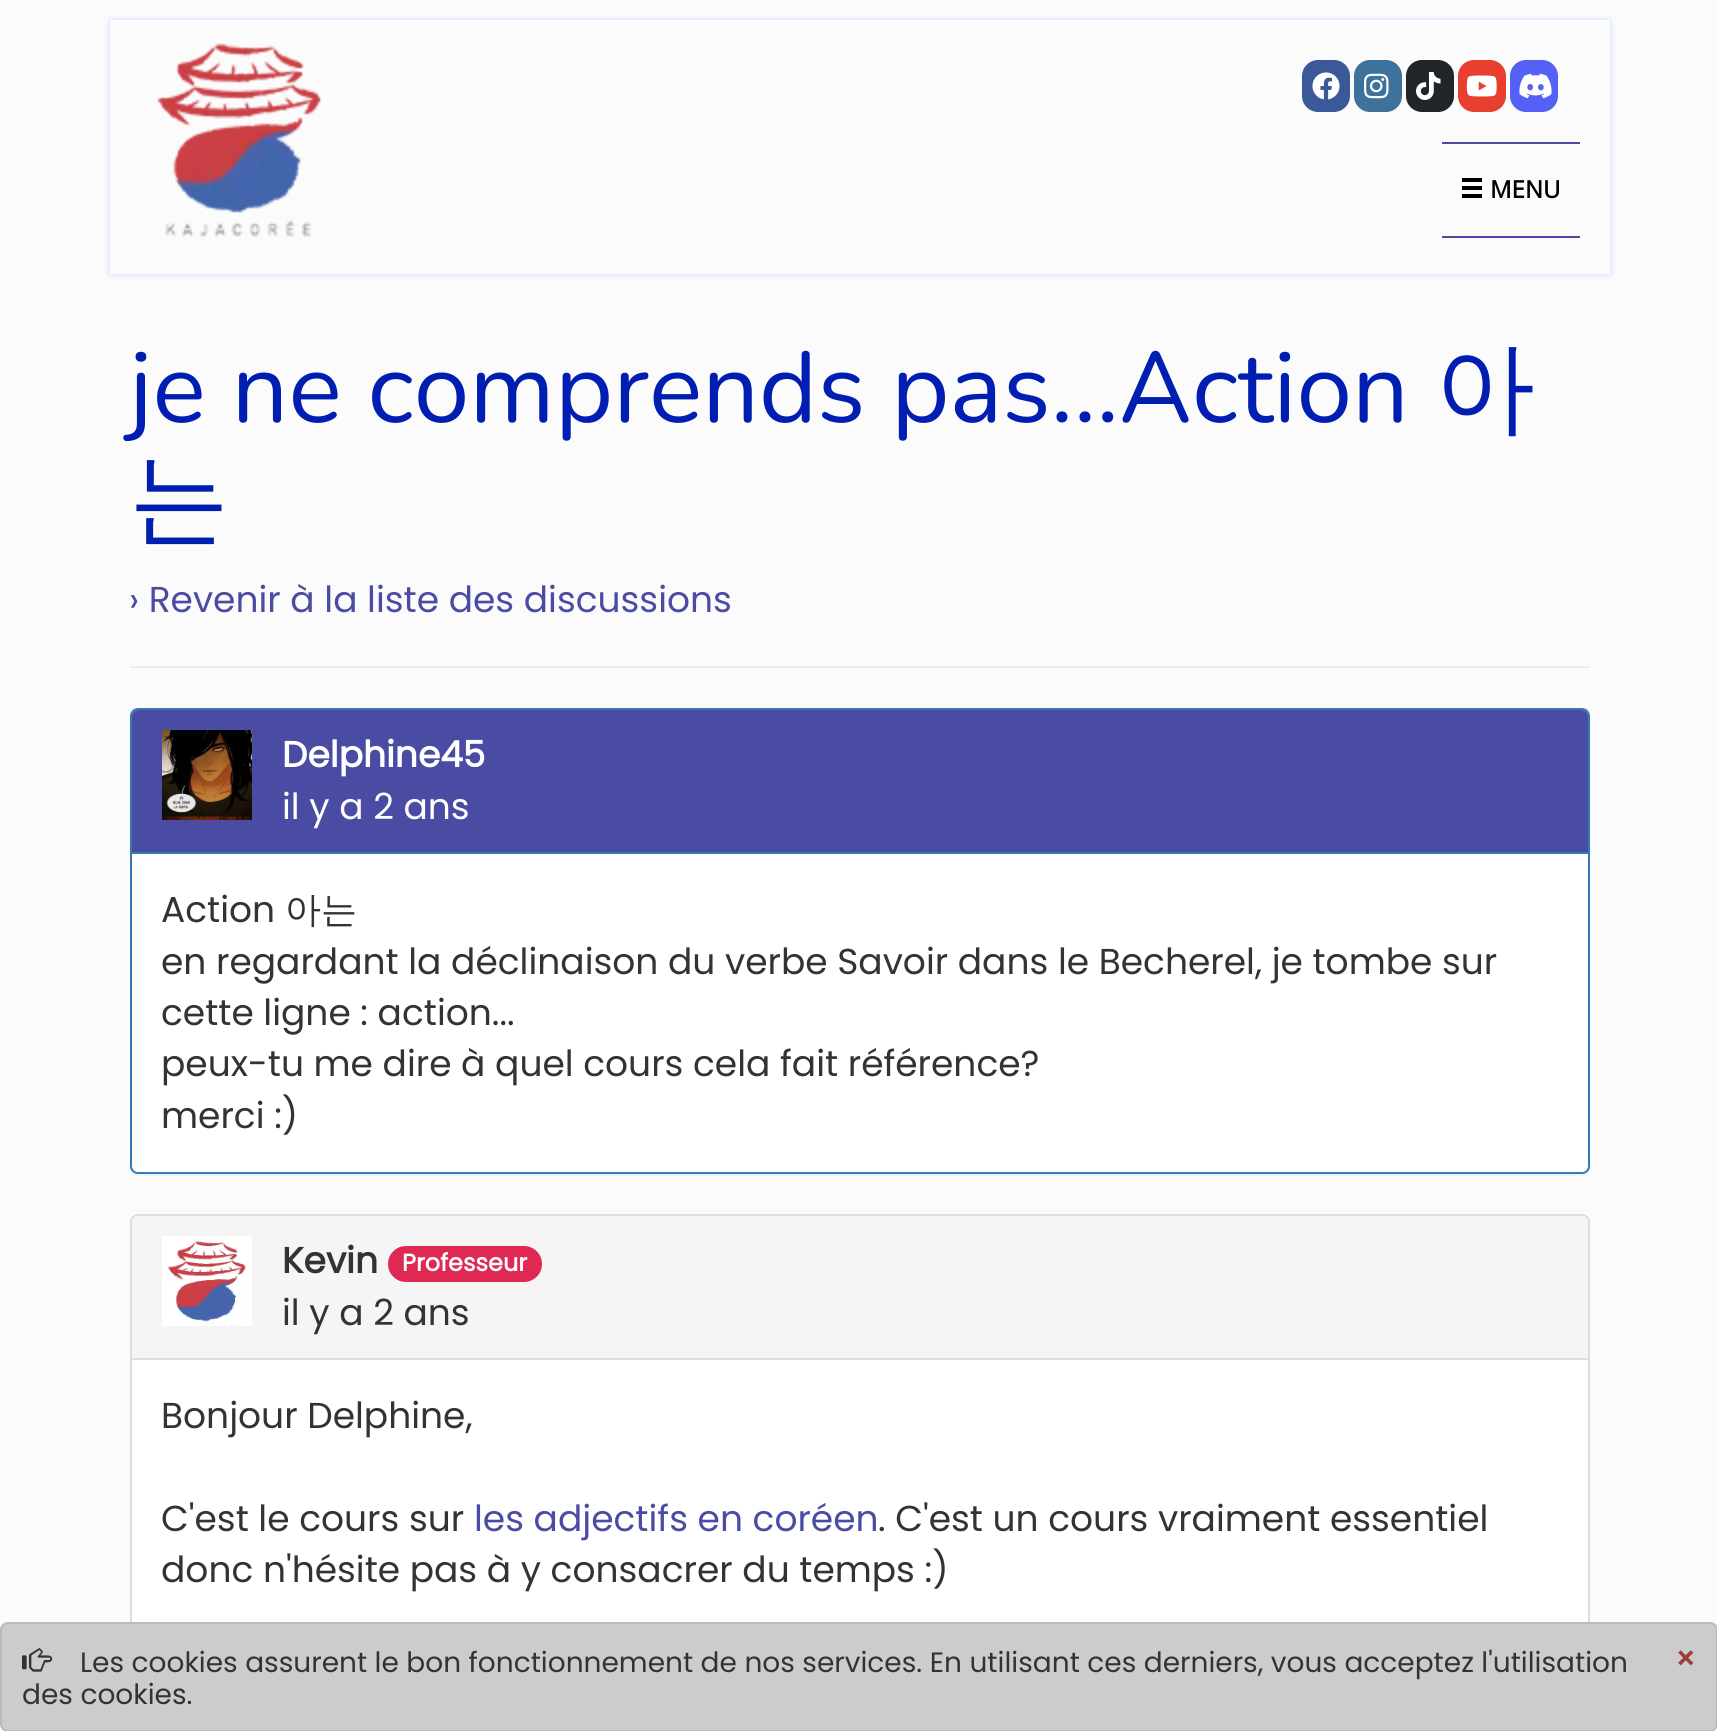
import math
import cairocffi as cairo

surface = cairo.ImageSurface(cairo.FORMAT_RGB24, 1717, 1731)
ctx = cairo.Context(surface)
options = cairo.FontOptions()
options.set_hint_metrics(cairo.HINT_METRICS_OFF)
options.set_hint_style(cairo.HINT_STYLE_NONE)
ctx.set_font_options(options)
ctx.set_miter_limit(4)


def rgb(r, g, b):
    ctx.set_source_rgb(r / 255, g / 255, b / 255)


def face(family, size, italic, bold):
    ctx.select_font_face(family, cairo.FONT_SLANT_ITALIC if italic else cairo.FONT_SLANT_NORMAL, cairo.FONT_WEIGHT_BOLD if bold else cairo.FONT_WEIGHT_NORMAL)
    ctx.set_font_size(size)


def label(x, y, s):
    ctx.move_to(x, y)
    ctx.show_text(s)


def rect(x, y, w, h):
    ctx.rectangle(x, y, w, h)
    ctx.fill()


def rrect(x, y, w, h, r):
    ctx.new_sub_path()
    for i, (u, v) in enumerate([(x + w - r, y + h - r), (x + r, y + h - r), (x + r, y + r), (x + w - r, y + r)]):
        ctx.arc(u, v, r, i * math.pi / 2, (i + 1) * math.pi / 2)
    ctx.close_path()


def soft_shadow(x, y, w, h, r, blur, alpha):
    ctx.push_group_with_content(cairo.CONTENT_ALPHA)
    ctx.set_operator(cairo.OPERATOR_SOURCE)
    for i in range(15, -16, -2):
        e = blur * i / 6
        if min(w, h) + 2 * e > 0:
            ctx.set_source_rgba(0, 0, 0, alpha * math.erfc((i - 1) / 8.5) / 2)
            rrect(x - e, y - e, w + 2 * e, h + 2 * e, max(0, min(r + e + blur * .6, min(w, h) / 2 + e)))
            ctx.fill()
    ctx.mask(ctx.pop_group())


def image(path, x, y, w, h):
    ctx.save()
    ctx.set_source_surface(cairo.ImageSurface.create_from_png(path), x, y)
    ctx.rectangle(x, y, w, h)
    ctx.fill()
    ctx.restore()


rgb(251, 251, 251)
ctx.paint()
ctx.save()
ctx.set_fill_rule(cairo.FILL_RULE_EVEN_ODD)
ctx.new_path()
ctx.move_to(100, 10)
ctx.line_to(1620, 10)
ctx.line_to(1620, 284)
ctx.line_to(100, 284)
ctx.close_path()
ctx.move_to(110, 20)
ctx.line_to(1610, 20)
ctx.line_to(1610, 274)
ctx.line_to(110, 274)
ctx.close_path()
ctx.clip()
rgb(145, 183, 255)
soft_shadow(110, 20, 1500, 254, 0, 3, 0.5)
ctx.restore()
image('image0.png', 157, 43, 164, 194)
rgb(59, 89, 152)
rrect(1303, 61, 46, 50, 15)
ctx.fill_preserve()
ctx.stroke()
image('image1.png', 1312, 72, 28, 28)
rgb(63, 114, 155)
rrect(1354, 60, 48, 52, 16)
ctx.fill()
image('image2.png', 1364, 73, 25, 26)
rgb(33, 37, 41)
rrect(1406, 60, 48, 52, 16)
ctx.fill()
image('image3.png', 1416, 72, 25, 28)
rgb(233, 63, 46)
rrect(1459, 61, 46, 50, 15)
ctx.fill_preserve()
ctx.stroke()
image('image4.png', 1466, 75, 31, 22)
rgb(85, 97, 245)
rrect(1510, 60, 48, 52, 16)
ctx.fill()
image('image5.png', 1519, 73, 33, 26)
rgb(73, 76, 162)
rect(1442, 142, 138, 2)
rect(1442, 236, 138, 2)
image('image6.png', 1462, 178, 20, 20)
face('Open Sans', 24, 0, 1)
rgb(0, 0, 0)
label(1490, 198, 'MENU')
face('Nunito ExtraLight', 100, 0, 0)
rgb(0, 30, 177)
label(129, 422, 'je ne comprends pas...Action')
face('WenQuanYi Zen Hei Medium', 100, 0, 0)
label(1435, 422, '아')
label(129, 532, '는')
face('Poppins', 36, 0, 0)
rgb(73, 76, 162)
label(129, 612, '› Revenir à la liste des discussions')
rgb(238, 238, 238)
rect(130, 666, 1460, 2)
rgb(0, 0, 0)
soft_shadow(130, 710, 1460, 466, 8, 1, 0.05)
rgb(255, 255, 255)
rrect(131, 709, 1458, 464, 7)
ctx.fill_preserve()
rgb(51, 122, 183)
ctx.stroke()
rgb(73, 76, 162)
ctx.new_path()
ctx.move_to(138, 710)
ctx.line_to(1582, 710)
ctx.curve_to(1585.5, 710, 1588, 712.5, 1588, 716)
ctx.line_to(1588, 854)
ctx.line_to(132, 854)
ctx.line_to(132, 716)
ctx.curve_to(132, 712.5, 134.5, 710, 138, 710)
ctx.close_path()
ctx.fill()
rgb(51, 122, 183)
rect(132, 852, 1456, 2)
image('image7.png', 162, 730, 90, 90)
face('Poppins', 36, 0, 1)
rgb(255, 255, 255)
label(282, 767, 'Delphine45')
face('Poppins', 36, 0, 0)
label(282, 819, 'il y a 2 ans')
rgb(51, 51, 51)
label(161, 922, 'Action')
face('WenQuanYi Zen Hei Medium', 36, 0, 0)
label(285, 922, '아는')
face('Poppins', 36, 0, 0)
label(161, 974, 'en regardant la déclinaison du verbe Savoir dans le Becherel, je tombe sur')
label(161, 1025, 'cette ligne : action...')
label(161, 1076, 'peux-tu me dire à quel cours cela fait référence?')
label(161, 1128, 'merci :)')
rgb(255, 255, 255)
rrect(131, 1215, 1458, 412, 7)
ctx.fill_preserve()
rgb(221, 221, 221)
ctx.stroke()
rgb(245, 245, 245)
ctx.new_path()
ctx.move_to(138, 1216)
ctx.line_to(1582, 1216)
ctx.curve_to(1585.5, 1216, 1588, 1218.5, 1588, 1222)
ctx.line_to(1588, 1360)
ctx.line_to(132, 1360)
ctx.line_to(132, 1222)
ctx.curve_to(132, 1218.5, 134.5, 1216, 138, 1216)
ctx.close_path()
ctx.fill()
rgb(221, 221, 221)
rect(132, 1358, 1456, 2)
image('image8.png', 162, 1236, 90, 90)
face('Poppins', 36, 0, 1)
rgb(51, 51, 51)
label(282, 1273, 'Kevin')
rgb(223, 41, 83)
rrect(388, 1246, 154, 36, 18)
ctx.fill()
face('Poppins', 24, 0, 1)
rgb(255, 255, 255)
label(402, 1271, 'Professeur')
face('Poppins', 36, 0, 0)
rgb(51, 51, 51)
label(282, 1325, 'il y a 2 ans')
label(161, 1428, 'Bonjour Delphine,')
label(161, 1531, 'C\'est le cours sur')
rgb(73, 76, 162)
label(474, 1531, 'les adjectifs en coréen')
rgb(51, 51, 51)
label(878, 1531, '. C\'est un cours vraiment essentiel')
label(161, 1582, 'donc n\'hésite pas à y consacrer du temps :)')
rgb(204, 204, 204)
rrect(1, 1623, 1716, 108, 7)
ctx.fill_preserve()
rgb(187, 187, 187)
ctx.stroke()
image('image9.png', 22, 1648, 31, 24)
face('Poppins', 28, 0, 0)
rgb(51, 51, 51)
label(80, 1672, 'Les cookies assurent le bon fonctionnement de nos services. En utilisant ces derniers, vous acceptez l\'utilisation')
face('Poppins', 32, 0, 1)
rgb(159, 61, 61)
label(1675, 1670, '×')
face('Poppins', 28, 0, 0)
rgb(51, 51, 51)
label(22, 1704, 'des cookies.')
surface.write_to_png('render.png')
